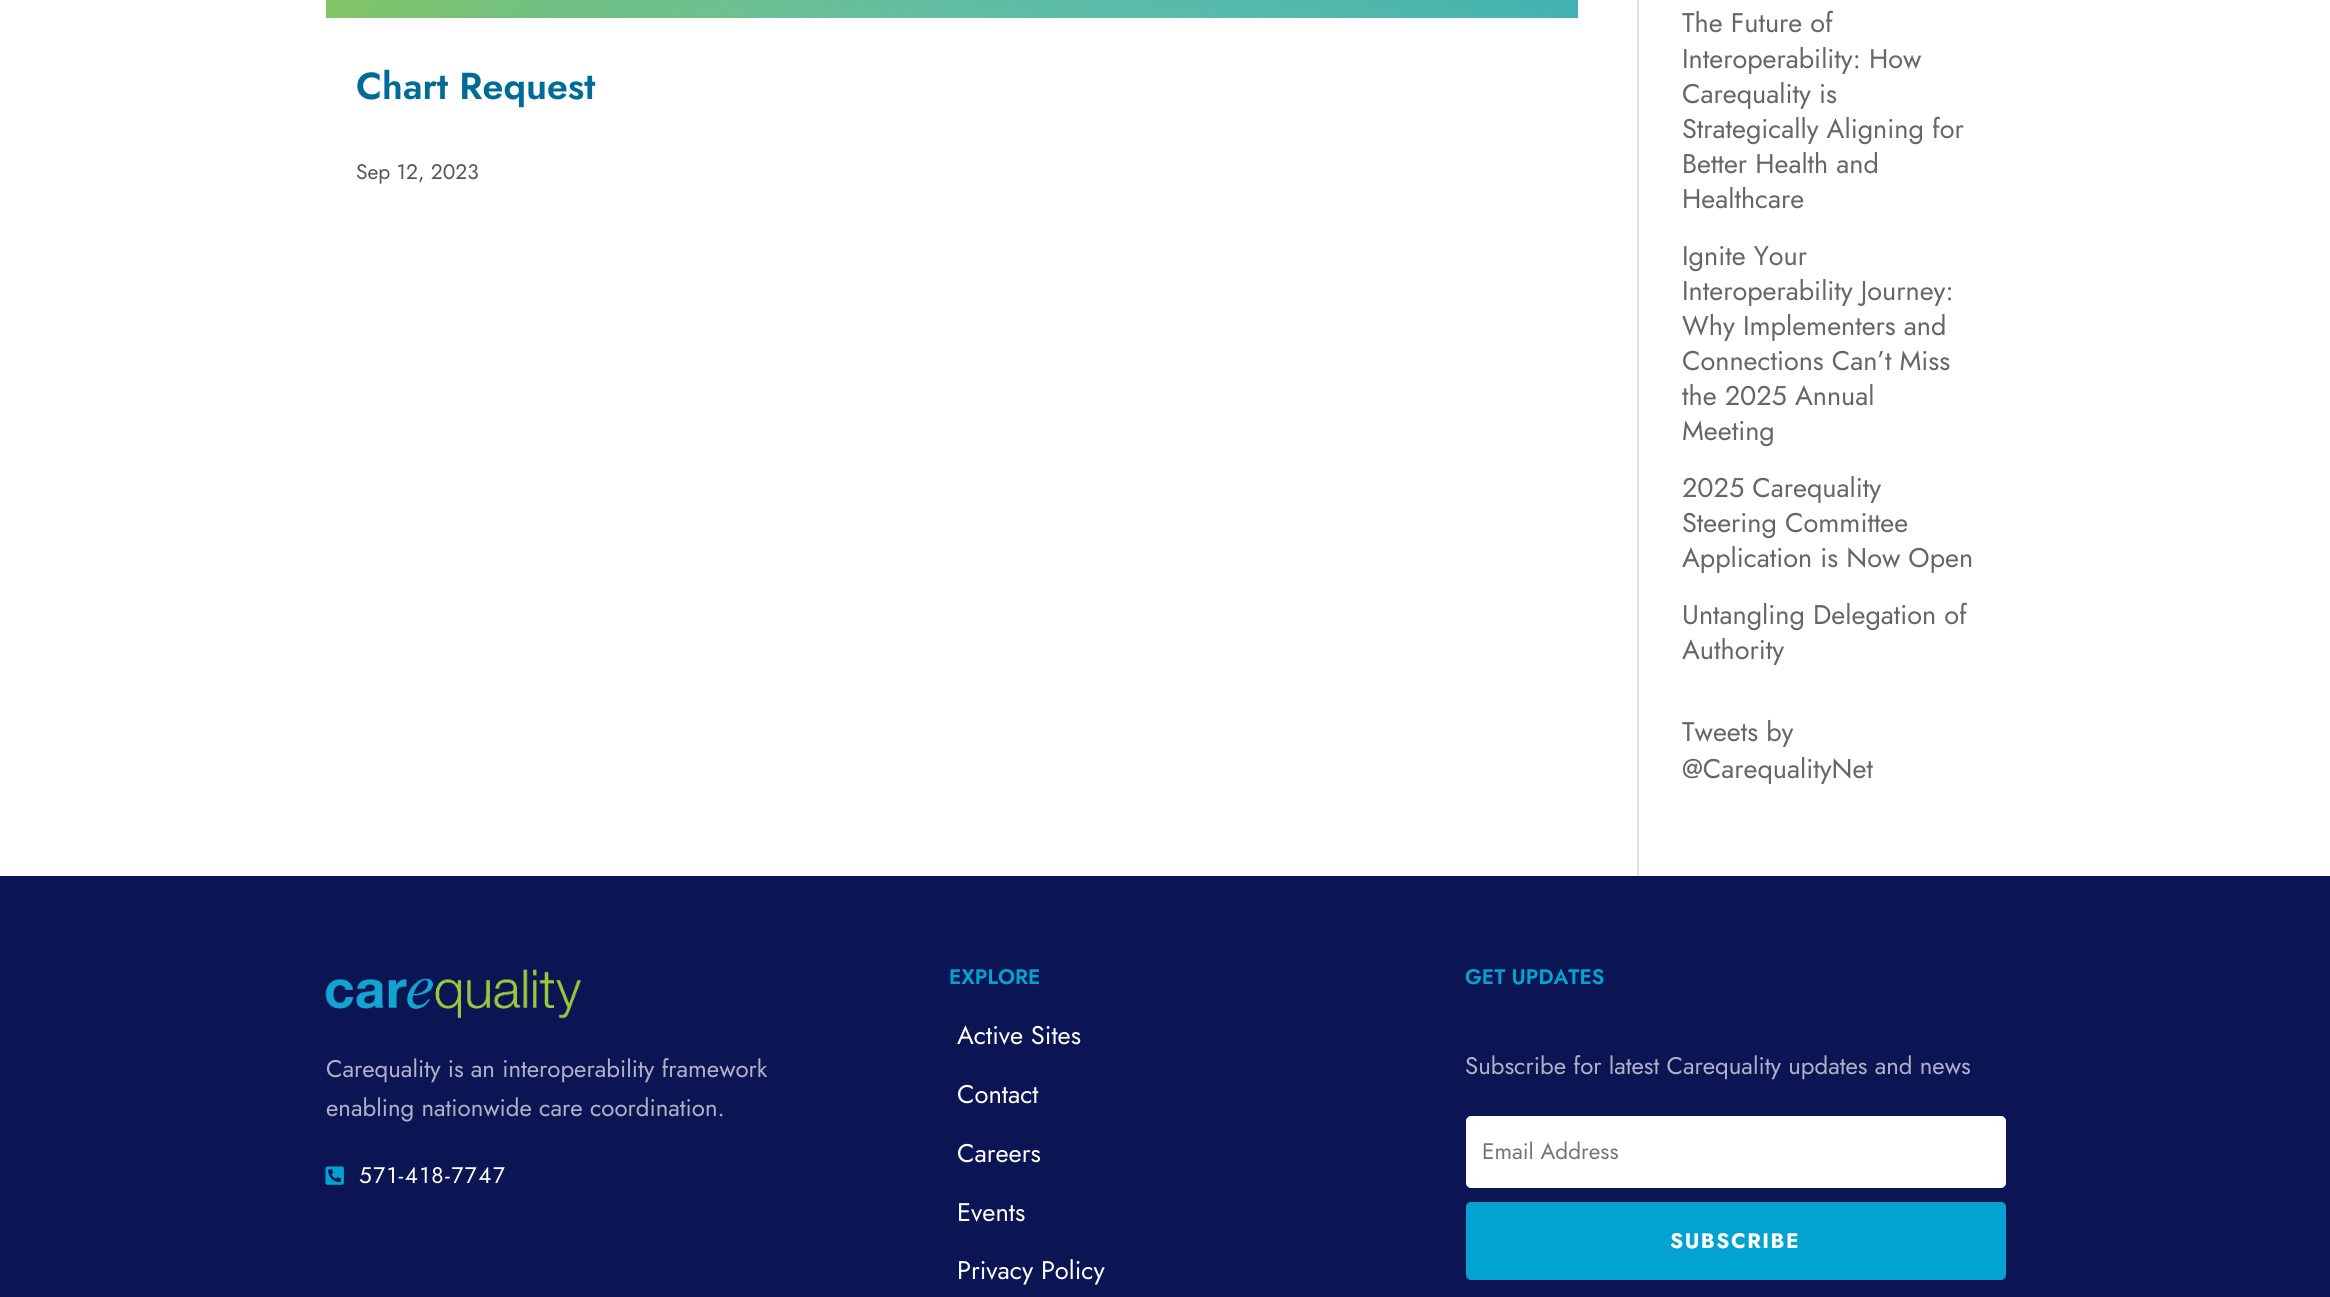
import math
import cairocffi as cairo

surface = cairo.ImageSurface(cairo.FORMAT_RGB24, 2330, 1297)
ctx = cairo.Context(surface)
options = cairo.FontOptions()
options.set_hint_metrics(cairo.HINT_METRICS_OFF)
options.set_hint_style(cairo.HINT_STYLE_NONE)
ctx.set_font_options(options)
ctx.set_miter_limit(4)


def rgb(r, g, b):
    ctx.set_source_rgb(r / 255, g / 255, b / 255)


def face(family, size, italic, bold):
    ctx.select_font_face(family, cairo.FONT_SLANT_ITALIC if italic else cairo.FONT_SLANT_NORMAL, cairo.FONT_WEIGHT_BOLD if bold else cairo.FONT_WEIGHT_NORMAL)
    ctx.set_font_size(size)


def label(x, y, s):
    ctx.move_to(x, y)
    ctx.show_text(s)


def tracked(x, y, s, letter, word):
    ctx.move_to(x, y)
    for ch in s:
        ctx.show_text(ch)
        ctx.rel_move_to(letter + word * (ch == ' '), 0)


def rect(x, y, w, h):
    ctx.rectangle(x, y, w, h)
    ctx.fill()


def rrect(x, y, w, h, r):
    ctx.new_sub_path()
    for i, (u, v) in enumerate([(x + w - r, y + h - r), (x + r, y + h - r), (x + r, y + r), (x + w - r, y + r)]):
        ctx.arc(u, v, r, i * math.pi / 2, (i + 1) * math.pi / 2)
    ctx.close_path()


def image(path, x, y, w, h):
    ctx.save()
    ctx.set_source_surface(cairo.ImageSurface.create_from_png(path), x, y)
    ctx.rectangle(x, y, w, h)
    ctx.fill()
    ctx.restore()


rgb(255, 255, 255)
ctx.paint()
rgb(226, 226, 226)
rect(1637, 0, 2, 876)
gradient = cairo.LinearGradient(1073, 243, 830, -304)
gradient.add_color_stop_rgba(0, 0.675, 0.831, 0.388, 1)
gradient.add_color_stop_rgba(0.71, 0.263, 0.714, 0.863, 1)
ctx.set_source(gradient)
rect(326, 0, 1252, 18)
gradient = cairo.LinearGradient(529, -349, 1375, 288)
gradient.add_color_stop_rgba(0, 0.592, 0.788, 0.235, 0.8)
gradient.add_color_stop_rgba(0.71, 0.592, 0.788, 0.235, 0)
ctx.set_source(gradient)
rect(326, 0, 846, 18)
gradient = cairo.LinearGradient(1202, -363, 702, 301)
gradient.add_color_stop_rgba(0, 0.078, 0.643, 0.827, 0.8)
gradient.add_color_stop_rgba(0.71, 0.078, 0.643, 0.827, 0)
ctx.set_source(gradient)
rect(733, 0, 845, 18)
face('Jost SemiBold', 37.5, 0, 0)
rgb(0, 107, 151)
label(356, 99, 'Chart Request')
face('Jost', 21, 0, 0)
rgb(85, 85, 85)
label(356, 179, 'Sep 12, 2023')
face('Jost', 27, 0, 0)
rgb(102, 102, 102)
label(1682, 32, 'The Future of')
label(1682, 68, 'Interoperability: How')
label(1682, 103, 'Carequality is')
label(1682, 138, 'Strategically Aligning for')
label(1682, 173, 'Better Health and')
label(1682, 208, 'Healthcare')
label(1682, 265, 'Ignite Your')
label(1682, 300, 'Interoperability Journey:')
label(1682, 335, 'Why Implementers and')
label(1682, 370, 'Connections Can’t Miss')
label(1682, 405, 'the 2025 Annual')
label(1682, 440, 'Meeting')
label(1682, 497, '2025 Carequality')
label(1682, 532, 'Steering Committee')
label(1682, 567, 'Application is Now Open')
label(1682, 624, 'Untangling Delegation of')
label(1682, 659, 'Authority')
label(1682, 741, 'Tweets by')
label(1682, 778, '@CarequalityNet')
rgb(12, 21, 84)
rect(0, 876, 2330, 421)
image('image0.png', 325, 969, 256, 50)
face('Jost', 24, 0, 0)
rgb(175, 178, 199)
label(326, 1077, 'Carequality is an interoperability framework')
label(326, 1116, 'enabling nationwide care coordination.')
image('image1.png', 325, 1166, 19, 19)
face('Jost', 22.5, 0, 0)
rgb(255, 255, 255)
tracked(359, 1183, '571-418-7747', 1.6, 0)
face('Jost SemiBold', 21, 0, 0)
rgb(2, 163, 209)
label(949, 984, 'EXPLORE')
face('Jost', 25.5, 0, 0)
rgb(255, 255, 255)
label(957, 1044, 'Active Sites')
label(957, 1103, 'Contact')
label(957, 1162, 'Careers')
label(957, 1221, 'Events')
label(957, 1279, 'Privacy Policy')
face('Jost SemiBold', 21, 0, 0)
rgb(2, 163, 209)
label(1465, 984, 'GET UPDATES')
face('Jost', 24, 0, 0)
rgb(175, 178, 199)
label(1465, 1074, 'Subscribe for latest Carequality updates and news')
rgb(255, 255, 255)
rrect(1467, 1117, 538, 70, 4)
ctx.fill_preserve()
ctx.stroke()
face('Jost', 22.5, 0, 0)
rgb(117, 117, 117)
label(1482, 1159, 'Email Address')
rgb(2, 163, 209)
rrect(1466, 1202, 540, 78, 5)
ctx.fill()
face('Jost', 21, 0, 1)
rgb(255, 255, 255)
tracked(1670, 1248, 'SUBSCRIBE', 1.5, 0)
surface.write_to_png('render.png')
